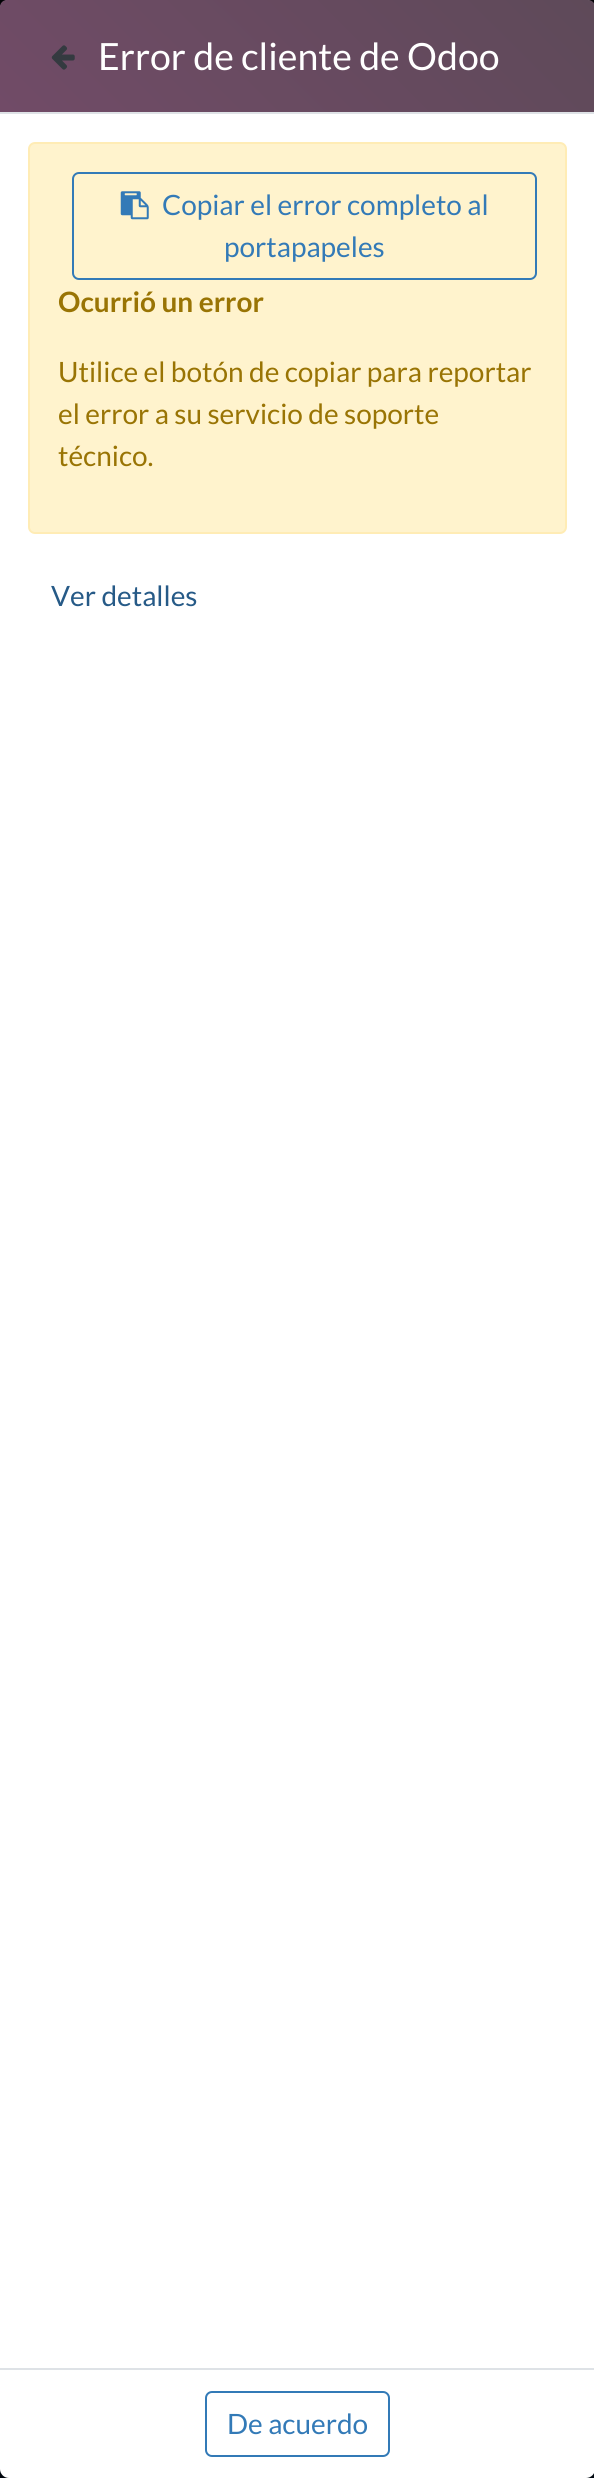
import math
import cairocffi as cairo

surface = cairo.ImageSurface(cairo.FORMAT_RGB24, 594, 2478)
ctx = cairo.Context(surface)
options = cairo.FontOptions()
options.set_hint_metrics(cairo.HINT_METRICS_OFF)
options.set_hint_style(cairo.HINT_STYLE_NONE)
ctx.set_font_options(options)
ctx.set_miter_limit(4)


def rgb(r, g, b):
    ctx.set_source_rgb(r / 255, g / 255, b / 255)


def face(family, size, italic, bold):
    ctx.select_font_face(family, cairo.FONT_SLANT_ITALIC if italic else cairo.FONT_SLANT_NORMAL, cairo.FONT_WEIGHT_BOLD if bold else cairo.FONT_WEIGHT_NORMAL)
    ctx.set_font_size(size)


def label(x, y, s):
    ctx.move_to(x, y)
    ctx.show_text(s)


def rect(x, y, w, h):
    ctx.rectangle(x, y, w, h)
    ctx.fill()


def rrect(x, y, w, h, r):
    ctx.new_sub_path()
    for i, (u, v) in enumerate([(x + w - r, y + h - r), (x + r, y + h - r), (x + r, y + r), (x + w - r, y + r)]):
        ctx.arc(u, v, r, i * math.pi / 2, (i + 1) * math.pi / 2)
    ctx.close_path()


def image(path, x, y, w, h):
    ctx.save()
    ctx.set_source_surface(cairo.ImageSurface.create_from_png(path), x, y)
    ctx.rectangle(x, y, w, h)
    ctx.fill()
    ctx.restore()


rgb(255, 255, 255)
ctx.paint()
image('image0.png', 0, 0, 594, 2478)
rgb(255, 255, 255)
rrect(0, 0, 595, 2478, 9)
ctx.fill()
gradient = cairo.LinearGradient(121, 233, 474, -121)
gradient.add_color_stop_rgba(0, 0.443, 0.294, 0.404, 1)
gradient.add_color_stop_rgba(1, 0.369, 0.29, 0.349, 1)
ctx.set_source(gradient)
ctx.new_path()
ctx.move_to(7, 0)
ctx.line_to(588, 0)
ctx.curve_to(592, 0, 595, 3, 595, 7)
ctx.line_to(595, 112)
ctx.line_to(0, 112)
ctx.line_to(0, 7)
ctx.curve_to(0, 3, 3, 0, 7, 0)
ctx.close_path()
ctx.fill()
rgb(222, 226, 230)
rect(0, 112, 594, 2)
image('image1.png', 51, 45, 24, 25)
face('Lato', 37.5, 0, 0)
rgb(255, 255, 255)
label(98, 70, 'Error de cliente de Odoo')
rgb(255, 243, 205)
rrect(29, 143, 537, 390, 6)
ctx.fill_preserve()
rgb(255, 236, 181)
ctx.stroke()
rrect(73, 173, 463, 106, 6)
rgb(51, 122, 183)
ctx.stroke()
image('image2.png', 120, 191, 29, 29)
face('Lato', 28, 0, 0)
label(162, 215, 'Copiar el error completo al')
label(224, 257, 'portapapeles')
face('Lato', 28, 0, 1)
rgb(153, 116, 4)
label(58, 312, 'Ocurrió un error')
face('Lato', 28, 0, 0)
label(58, 382, 'Utilice el botón de copiar para reportar')
label(58, 424, 'el error a su servicio de soporte')
label(58, 466, 'técnico.')
rgb(38, 90, 135)
label(51, 606, 'Ver detalles')
rgb(222, 226, 230)
rect(0, 2368, 594, 2)
rrect(206, 2392, 183, 64, 6)
rgb(51, 122, 183)
ctx.stroke()
label(227, 2434, 'De acuerdo')
surface.write_to_png('render.png')
